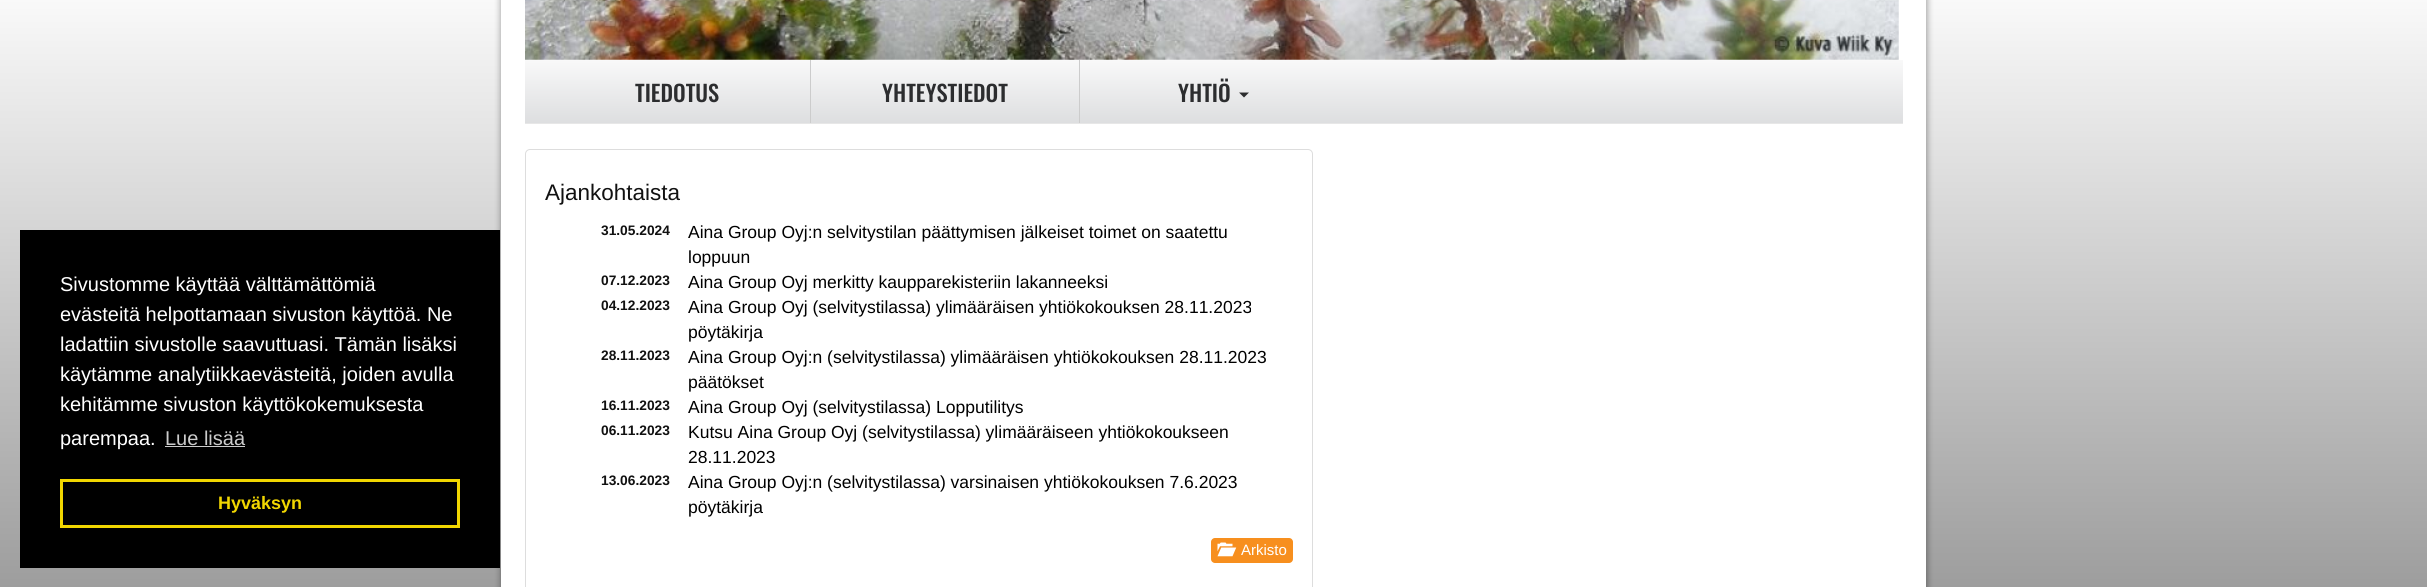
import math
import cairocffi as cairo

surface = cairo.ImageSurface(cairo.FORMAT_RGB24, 2427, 587)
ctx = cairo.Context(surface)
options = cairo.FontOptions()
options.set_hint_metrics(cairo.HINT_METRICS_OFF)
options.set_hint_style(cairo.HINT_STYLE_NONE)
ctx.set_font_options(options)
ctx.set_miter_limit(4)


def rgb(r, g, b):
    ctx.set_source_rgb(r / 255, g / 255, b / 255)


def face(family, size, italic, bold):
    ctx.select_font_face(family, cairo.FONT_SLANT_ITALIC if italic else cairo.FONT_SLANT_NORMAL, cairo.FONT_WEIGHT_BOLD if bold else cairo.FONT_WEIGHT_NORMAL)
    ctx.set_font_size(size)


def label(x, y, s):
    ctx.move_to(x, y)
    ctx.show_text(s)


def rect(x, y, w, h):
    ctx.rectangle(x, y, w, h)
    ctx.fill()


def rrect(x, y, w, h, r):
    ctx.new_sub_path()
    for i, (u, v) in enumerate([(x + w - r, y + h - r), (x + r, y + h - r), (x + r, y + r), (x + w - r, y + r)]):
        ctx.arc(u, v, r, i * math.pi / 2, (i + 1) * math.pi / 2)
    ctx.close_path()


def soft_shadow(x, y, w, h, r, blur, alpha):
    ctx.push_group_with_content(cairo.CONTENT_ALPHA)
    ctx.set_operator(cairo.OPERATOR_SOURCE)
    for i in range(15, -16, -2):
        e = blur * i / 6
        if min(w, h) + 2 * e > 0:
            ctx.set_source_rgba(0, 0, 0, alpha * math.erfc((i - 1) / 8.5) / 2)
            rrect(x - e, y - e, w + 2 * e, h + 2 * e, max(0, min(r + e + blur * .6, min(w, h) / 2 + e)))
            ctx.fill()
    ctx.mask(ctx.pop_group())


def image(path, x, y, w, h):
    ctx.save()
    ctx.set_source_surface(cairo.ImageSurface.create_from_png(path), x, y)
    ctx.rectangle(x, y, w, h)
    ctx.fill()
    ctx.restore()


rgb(255, 255, 255)
ctx.paint()
gradient = cairo.LinearGradient(1214, 0, 1214, 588)
gradient.add_color_stop_rgba(0, 0.976, 0.976, 0.976, 1)
gradient.add_color_stop_rgba(1, 0.616, 0.616, 0.616, 1)
ctx.set_source(gradient)
rect(0, 0, 2427, 587)
rgb(0, 0, 0)
soft_shadow(500, -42, 1428, 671, 33, 3, 0.3)
rgb(0, 0, 0)
rect(20, 230, 480, 338)
face('Liberation Sans', 20, 0, 0)
rgb(255, 255, 255)
label(60, 291, 'Sivustomme käyttää välttämättömiä')
label(60, 321, 'evästeitä helpottamaan sivuston käyttöä. Ne')
label(60, 351, 'ladattiin sivustolle saavuttuasi. Tämän lisäksi')
label(60, 381, 'käytämme analytiikkaevästeitä, joiden avulla')
label(60, 411, 'kehitämme sivuston käyttökokemuksesta')
label(60, 445, 'parempaa.')
rgb(204, 204, 204)
label(165, 445, 'Lue lisää')
rect(165, 446, 80, 1)
ctx.rectangle(61.5, 480.5, 397, 46)
rgb(241, 214, 0)
ctx.set_line_width(3)
ctx.stroke()
face('Liberation Sans', 18, 0, 1)
label(218, 509, 'Hyväksyn')
rgb(255, 255, 255)
rect(501, 0, 1425, 587)
image('image0.png', 525, 0, 1374, 60)
gradient = cairo.LinearGradient(1214, 60, 1214, 123)
gradient.add_color_stop_rgba(0, 0.976, 0.976, 0.976, 1)
gradient.add_color_stop_rgba(1, 0.867, 0.871, 0.878, 1)
ctx.set_source(gradient)
rect(525, 60, 1378, 63)
rgb(231, 231, 231)
rect(525, 123, 1378, 1)
rgb(204, 204, 204)
rect(810, 60, 1, 63)
face('Oswald Medium', 22.5, 0, 0)
rgb(44, 45, 47)
label(635, 102, 'TIEDOTUS')
rgb(204, 204, 204)
rect(1079, 60, 1, 63)
rgb(44, 45, 47)
label(882, 102, 'YHTEYSTIEDOT')
label(1178, 102, 'YHTIÖ')
ctx.new_path()
ctx.move_to(1239, 92.5)
ctx.line_to(1249, 92.5)
ctx.line_to(1244, 97.5)
ctx.close_path()
ctx.fill()
rrect(525.5, 149.5, 787, 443, 4.5)
rgb(221, 221, 221)
ctx.set_line_width(1)
ctx.stroke()
face('Liberation Sans', 22.5, 0, 0)
rgb(17, 17, 17)
label(545, 200, 'Ajankohtaista')
face('Liberation Sans', 13.75, 0, 1)
label(601, 235, '31.05.2024')
face('Liberation Sans', 17.5, 0, 0)
rgb(0, 0, 0)
label(688, 238, 'Aina Group Oyj:n selvitystilan päättymisen jälkeiset toimet on saatettu')
label(688, 263, 'loppuun')
face('Liberation Sans', 13.75, 0, 1)
rgb(17, 17, 17)
label(601, 285, '07.12.2023')
face('Liberation Sans', 17.5, 0, 0)
rgb(0, 0, 0)
label(688, 288, 'Aina Group Oyj merkitty kaupparekisteriin lakanneeksi')
face('Liberation Sans', 13.75, 0, 1)
rgb(17, 17, 17)
label(601, 310, '04.12.2023')
face('Liberation Sans', 17.5, 0, 0)
rgb(0, 0, 0)
label(688, 313, 'Aina Group Oyj (selvitystilassa) ylimääräisen yhtiökokouksen 28.11.2023')
label(688, 338, 'pöytäkirja')
face('Liberation Sans', 13.75, 0, 1)
rgb(17, 17, 17)
label(601, 360, '28.11.2023')
face('Liberation Sans', 17.5, 0, 0)
rgb(0, 0, 0)
label(688, 363, 'Aina Group Oyj:n (selvitystilassa) ylimääräisen yhtiökokouksen 28.11.2023')
label(688, 388, 'päätökset')
face('Liberation Sans', 13.75, 0, 1)
rgb(17, 17, 17)
label(601, 410, '16.11.2023')
face('Liberation Sans', 17.5, 0, 0)
rgb(0, 0, 0)
label(688, 413, 'Aina Group Oyj (selvitystilassa) Lopputilitys')
face('Liberation Sans', 13.75, 0, 1)
rgb(17, 17, 17)
label(601, 435, '06.11.2023')
face('Liberation Sans', 17.5, 0, 0)
rgb(0, 0, 0)
label(688, 438, 'Kutsu Aina Group Oyj (selvitystilassa) ylimääräiseen yhtiökokoukseen')
label(688, 463, '28.11.2023')
face('Liberation Sans', 13.75, 0, 1)
rgb(17, 17, 17)
label(601, 485, '13.06.2023')
face('Liberation Sans', 17.5, 0, 0)
rgb(0, 0, 0)
label(688, 488, 'Aina Group Oyj:n (selvitystilassa) varsinaisen yhtiökokouksen 7.6.2023')
label(688, 513, 'pöytäkirja')
rgb(247, 143, 30)
rrect(1211, 538, 82, 25, 4)
ctx.fill()
image('image1.png', 1217, 542, 20, 15)
face('Liberation Sans', 15, 0, 0)
rgb(255, 255, 255)
label(1241, 555, 'Arkisto')
surface.write_to_png('render.png')
